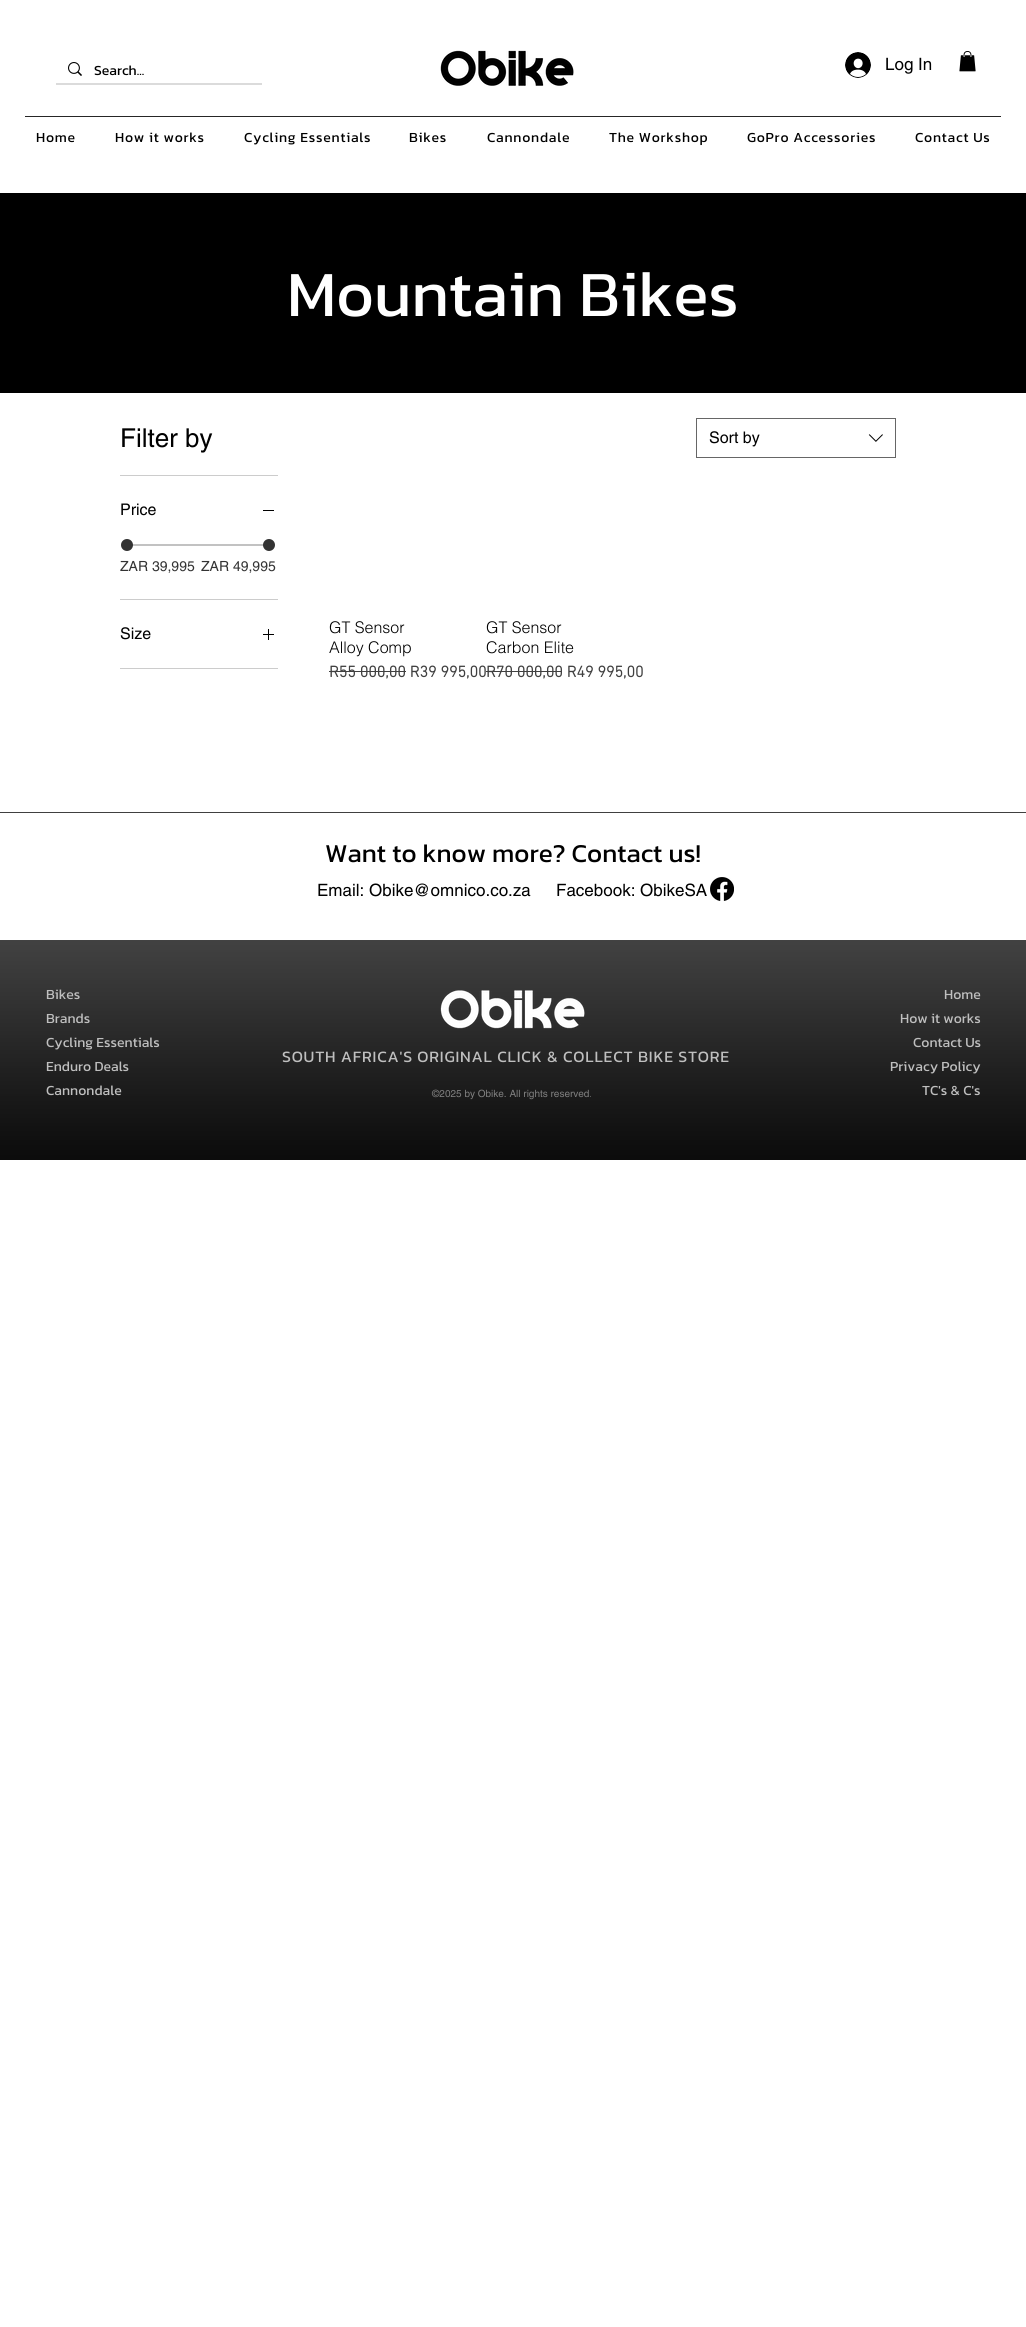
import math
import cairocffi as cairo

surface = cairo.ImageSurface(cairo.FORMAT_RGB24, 1026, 2327)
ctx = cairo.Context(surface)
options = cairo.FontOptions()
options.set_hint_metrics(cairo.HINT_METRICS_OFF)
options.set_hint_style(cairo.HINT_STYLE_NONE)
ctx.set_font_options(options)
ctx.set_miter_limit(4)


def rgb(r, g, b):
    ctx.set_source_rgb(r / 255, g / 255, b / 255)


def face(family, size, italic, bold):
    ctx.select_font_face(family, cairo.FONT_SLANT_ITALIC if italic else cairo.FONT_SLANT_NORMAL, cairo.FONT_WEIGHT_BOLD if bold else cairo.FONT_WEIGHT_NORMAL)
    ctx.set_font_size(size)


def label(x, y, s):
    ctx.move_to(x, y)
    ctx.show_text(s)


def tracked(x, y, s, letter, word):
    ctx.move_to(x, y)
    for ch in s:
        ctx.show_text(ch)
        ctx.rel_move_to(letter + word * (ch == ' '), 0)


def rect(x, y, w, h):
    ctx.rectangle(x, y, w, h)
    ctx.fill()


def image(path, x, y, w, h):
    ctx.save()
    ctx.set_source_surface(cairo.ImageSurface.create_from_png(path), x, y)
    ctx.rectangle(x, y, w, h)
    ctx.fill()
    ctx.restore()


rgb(255, 255, 255)
ctx.paint()
rgb(219, 219, 219)
rect(56, 83, 206, 2)
image('image0.png', 68, 62, 14, 14)
face('Kanit', 14, 0, 0)
rgb(0, 0, 0)
label(94, 75, 'Search...')
image('image1.png', 440, 50, 134, 36)
image('image2.png', 845, 52, 26, 26)
face('helvetica', 17, 0, 0)
label(885, 70, 'Log In')
image('image3.png', 959, 51, 17, 21)
rgb(38, 38, 38)
rect(25, 116, 976, 1)
face('Kanit', 14, 0, 0)
rgb(0, 0, 0)
tracked(36, 142, 'Home', 0.75, 0)
tracked(115, 142, 'How it works', 0.75, 0)
tracked(244, 142, 'Cycling Essentials', 0.75, 0)
tracked(409, 142, 'Bikes', 0.75, 0)
tracked(487, 142, 'Cannondale', 0.75, 0)
tracked(609, 142, 'The Workshop', 0.75, 0)
tracked(747, 142, 'GoPro Accessories', 0.75, 0)
tracked(915, 142, 'Contact Us', 0.75, 0)
rect(0, 193, 1026, 200)
face('Kanit', 65, 0, 0)
rgb(255, 255, 255)
label(287, 316, 'Mountain Bikes')
rgb(204, 204, 204)
rect(120, 475, 158, 1)
face('helvetica', 26, 0, 0)
rgb(0, 0, 0)
label(120, 447, 'Filter by')
rgb(204, 204, 204)
rect(120, 599, 158, 1)
face('helvetica', 16, 0, 0)
rgb(0, 0, 0)
label(120, 515, 'Price')
rect(263, 510, 11, 1)
rgb(194, 194, 194)
rect(126, 544, 142, 2)
rgb(51, 51, 51)
ctx.new_path()
ctx.arc(127, 545, 6, 0, 2 * math.pi)
ctx.fill()
ctx.arc(269, 545, 6, 0, 2 * math.pi)
ctx.fill()
face('helvetica', 14, 0, 0)
label(120, 571, 'ZAR 39,995')
label(201, 571, 'ZAR 49,995')
rgb(204, 204, 204)
rect(120, 668, 158, 1)
face('helvetica', 16, 0, 0)
rgb(0, 0, 0)
label(120, 639, 'Size')
image('image4.png', 263, 629, 11, 11)
ctx.rectangle(696.5, 418.5, 199, 39)
rgb(102, 102, 102)
ctx.set_line_width(1)
ctx.stroke()
rgb(0, 0, 0)
label(709, 443, 'Sort by')
image('image5.png', 868, 434, 15, 8)
face('helvetica Light', 16, 0, 0)
label(329, 633, 'GT Sensor')
label(329, 653, 'Alloy Comp')
face('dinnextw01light', 16, 0, 1)
rgb(64, 64, 64)
label(329, 677, 'R55 000,00 R39 995,00')
rect(329, 671, 77, 1)
face('helvetica Light', 16, 0, 0)
rgb(0, 0, 0)
label(486, 633, 'GT Sensor')
label(486, 653, 'Carbon Elite')
face('dinnextw01light', 16, 0, 1)
rgb(64, 64, 64)
label(486, 677, 'R70 000,00 R49 995,00')
rect(486, 671, 76, 1)
rect(0, 812, 1026, 1)
face('Kanit', 26, 0, 0)
rgb(0, 0, 0)
label(325, 862, 'Want to know more? Contact us!')
face('helvetica', 17, 0, 0)
label(317, 896, 'Email: Obike@omnico.co.za')
label(556, 896, 'Facebook: ObikeSA')
image('image6.png', 710, 877, 24, 24)
rect(0, 940, 1026, 220)
image('image7.png', 0, 940, 1026, 220)
face('Kanit', 14, 0, 0)
rgb(191, 191, 191)
label(46, 999, 'Bikes')
label(46, 1023, 'Brands')
label(46, 1047, 'Cycling Essentials')
label(46, 1071, 'Enduro Deals')
label(46, 1095, 'Cannondale')
image('image8.png', 440, 990, 145, 39)
label(944, 999, 'Home')
label(900, 1023, 'How it works')
label(913, 1047, 'Contact Us')
label(890, 1071, 'Privacy Policy')
label(922, 1095, 'TC\'s & C\'s')
face('Kanit', 16, 0, 0)
tracked(282, 1062, 'SOUTH AFRICA\'S ORIGINAL CLICK & COLLECT BIKE STORE', 0.8, 0)
face('helvetica', 10, 0, 0)
rgb(128, 128, 128)
label(432, 1097, '©2025 by Obike. All rights reserved.')
surface.write_to_png('render.png')
